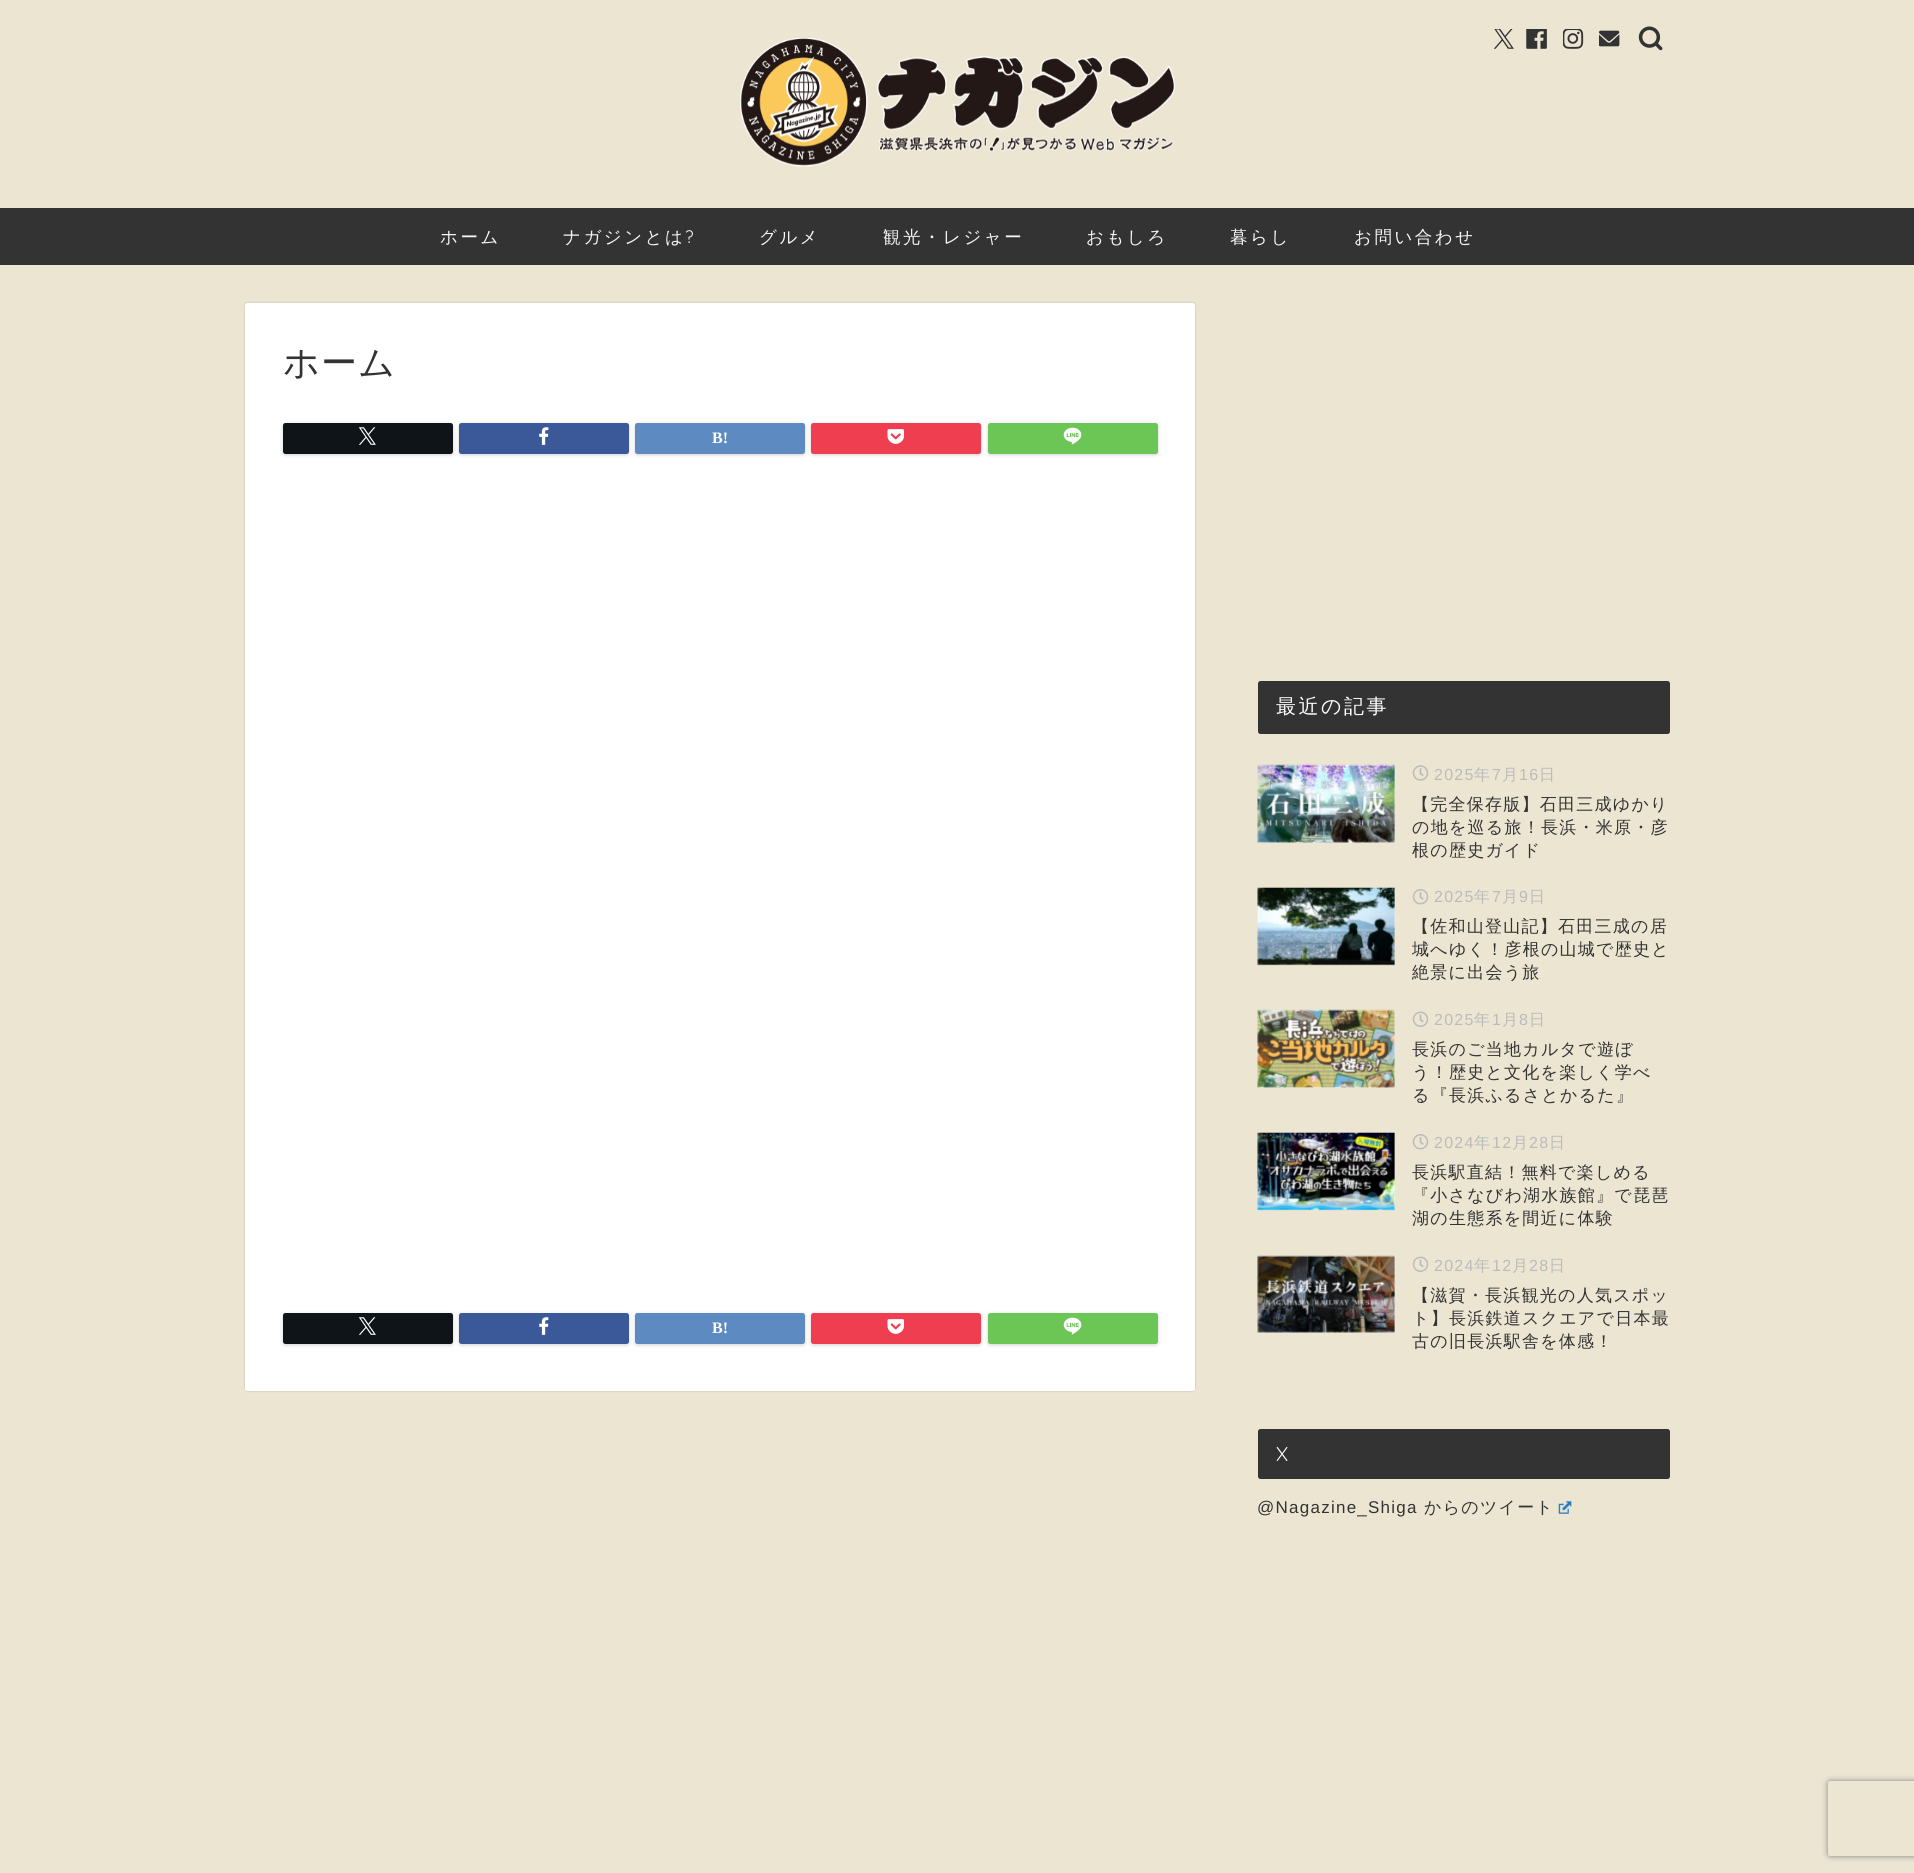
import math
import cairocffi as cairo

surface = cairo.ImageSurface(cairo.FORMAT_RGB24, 1914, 1873)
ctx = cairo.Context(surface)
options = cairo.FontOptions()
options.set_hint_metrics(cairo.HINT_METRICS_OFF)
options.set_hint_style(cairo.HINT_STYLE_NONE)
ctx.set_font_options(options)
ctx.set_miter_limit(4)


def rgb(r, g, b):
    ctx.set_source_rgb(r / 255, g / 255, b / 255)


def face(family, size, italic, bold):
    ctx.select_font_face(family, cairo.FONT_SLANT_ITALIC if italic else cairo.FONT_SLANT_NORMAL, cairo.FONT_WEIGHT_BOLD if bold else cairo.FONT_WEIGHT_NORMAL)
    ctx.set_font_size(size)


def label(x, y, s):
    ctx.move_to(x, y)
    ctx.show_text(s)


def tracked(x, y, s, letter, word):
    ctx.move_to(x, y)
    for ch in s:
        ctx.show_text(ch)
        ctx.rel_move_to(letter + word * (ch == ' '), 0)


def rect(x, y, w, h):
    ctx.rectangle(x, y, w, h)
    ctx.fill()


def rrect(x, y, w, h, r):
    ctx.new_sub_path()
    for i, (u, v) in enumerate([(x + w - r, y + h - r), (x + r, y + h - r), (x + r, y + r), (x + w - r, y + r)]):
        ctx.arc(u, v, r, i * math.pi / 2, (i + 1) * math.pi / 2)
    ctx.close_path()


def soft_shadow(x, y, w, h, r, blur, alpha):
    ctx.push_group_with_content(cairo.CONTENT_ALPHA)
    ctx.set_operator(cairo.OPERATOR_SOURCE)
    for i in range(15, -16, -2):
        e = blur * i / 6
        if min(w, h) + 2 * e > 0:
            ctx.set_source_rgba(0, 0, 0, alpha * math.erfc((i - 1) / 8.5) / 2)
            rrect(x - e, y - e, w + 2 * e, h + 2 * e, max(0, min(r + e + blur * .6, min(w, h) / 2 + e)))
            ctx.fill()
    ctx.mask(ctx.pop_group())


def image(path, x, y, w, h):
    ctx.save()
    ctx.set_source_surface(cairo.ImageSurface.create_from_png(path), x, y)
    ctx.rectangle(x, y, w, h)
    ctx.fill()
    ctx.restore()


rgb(235, 229, 210)
ctx.paint()
image('image0.png', 740, 38, 435, 129)
image('image1.png', 1494, 29, 20, 20)
image('image2.png', 1526, 29, 21, 20)
image('image3.png', 1563, 29, 21, 20)
image('image4.png', 1599, 30, 21, 17)
image('image5.png', 1638, 26, 25, 25)
rgb(51, 51, 51)
rect(0, 208, 1914, 57)
face('WenQuanYi Zen Hei Medium', 17.5, 0, 0)
rgb(244, 244, 244)
tracked(440, 243, 'ホーム', 2.5, 0)
tracked(563, 243, 'ナガジンとは', 2.5, 0)
face('Quicksand Light', 17.5, 0, 0)
tracked(685, 243, '?', 2.5, 0)
face('WenQuanYi Zen Hei Medium', 17.5, 0, 0)
tracked(759, 243, 'グルメ', 2.5, 0)
tracked(883, 243, '観光・レジャー', 2.5, 0)
tracked(1086, 243, 'おもしろ', 2.5, 0)
tracked(1230, 243, '暮らし', 2.5, 0)
tracked(1354, 243, 'お問い合わせ', 2.5, 0)
rgb(0, 0, 0)
soft_shadow(245, 303, 950, 1088, 2.5, 1, 0.18)
rgb(255, 255, 255)
rrect(245, 303, 950, 1088, 2.5)
ctx.fill()
face('WenQuanYi Zen Hei Medium', 36, 0, 0)
rgb(51, 51, 51)
tracked(283, 375, 'ホーム', 1.25, 0)
rgb(0, 0, 0)
soft_shadow(283, 424, 170, 31, 2.5, 2, 0.18)
rgb(15, 20, 25)
rrect(284.5, 424.5, 167, 28, 1)
ctx.fill_preserve()
ctx.set_line_width(3)
ctx.stroke()
image('image6.png', 358, 427, 18, 18)
rgb(0, 0, 0)
soft_shadow(459, 424, 170, 31, 2.5, 2, 0.18)
rgb(59, 89, 152)
rrect(460.5, 424.5, 167, 28, 1)
ctx.fill_preserve()
ctx.stroke()
image('image7.png', 539, 427, 10, 18)
rgb(0, 0, 0)
soft_shadow(635, 424, 170, 31, 2.5, 2, 0.18)
rgb(93, 138, 193)
rrect(636.5, 424.5, 167, 28, 1)
ctx.fill_preserve()
ctx.stroke()
face('Liberation Serif', 16, 0, 1)
rgb(255, 255, 255)
label(712, 443, 'B!')
rgb(0, 0, 0)
soft_shadow(811, 424, 170, 31, 2.5, 2, 0.18)
rgb(240, 62, 81)
rrect(812.5, 424.5, 167, 28, 1)
ctx.fill_preserve()
ctx.stroke()
image('image8.png', 887, 429, 17, 15)
rgb(0, 0, 0)
soft_shadow(988, 424, 170, 31, 2.5, 2, 0.18)
rgb(108, 198, 85)
rrect(989.5, 424.5, 167, 28, 1)
ctx.fill_preserve()
ctx.stroke()
image('image9.png', 1063, 427, 19, 18)
rgb(0, 0, 0)
soft_shadow(283, 1314, 170, 31, 2.5, 2, 0.18)
rgb(15, 20, 25)
rrect(284.5, 1314.5, 167, 28, 1)
ctx.fill_preserve()
ctx.stroke()
image('image6.png', 358, 1317, 18, 18)
rgb(0, 0, 0)
soft_shadow(459, 1314, 170, 31, 2.5, 2, 0.18)
rgb(59, 89, 152)
rrect(460.5, 1314.5, 167, 28, 1)
ctx.fill_preserve()
ctx.stroke()
image('image7.png', 539, 1317, 10, 18)
rgb(0, 0, 0)
soft_shadow(635, 1314, 170, 31, 2.5, 2, 0.18)
rgb(93, 138, 193)
rrect(636.5, 1314.5, 167, 28, 1)
ctx.fill_preserve()
ctx.stroke()
rgb(255, 255, 255)
label(712, 1333, 'B!')
rgb(0, 0, 0)
soft_shadow(811, 1314, 170, 31, 2.5, 2, 0.18)
rgb(240, 62, 81)
rrect(812.5, 1314.5, 167, 28, 1)
ctx.fill_preserve()
ctx.stroke()
image('image8.png', 887, 1319, 17, 15)
rgb(0, 0, 0)
soft_shadow(988, 1314, 170, 31, 2.5, 2, 0.18)
rgb(108, 198, 85)
rrect(989.5, 1314.5, 167, 28, 1)
ctx.fill_preserve()
ctx.stroke()
image('image9.png', 1063, 1317, 19, 18)
rgb(51, 51, 51)
rrect(1258, 681, 412, 53, 2.5)
ctx.fill()
face('WenQuanYi Zen Hei Medium', 20, 0, 0)
rgb(255, 255, 255)
tracked(1276, 713, '最近の記事', 2.5, 0)
rect(1258, 765, 137, 78)
image('image10.png', 1257, 764, 138, 79)
image('image11.png', 1412, 765, 17, 16)
face('Liberation Sans', 16, 0, 0)
rgb(187, 187, 187)
tracked(1434, 780, '2025', 1.25, 0)
face('WenQuanYi Zen Hei Medium', 16, 0, 0)
tracked(1474, 780, '年', 1.25, 0)
face('Liberation Sans', 16, 0, 0)
tracked(1492, 780, '7', 1.25, 0)
face('WenQuanYi Zen Hei Medium', 16, 0, 0)
tracked(1502, 780, '月', 1.25, 0)
face('Liberation Sans', 16, 0, 0)
tracked(1519, 780, '16', 1.25, 0)
face('WenQuanYi Zen Hei Medium', 16, 0, 0)
tracked(1539, 780, '日', 1.25, 0)
face('WenQuanYi Zen Hei Medium', 17, 0, 0)
rgb(51, 51, 51)
tracked(1412, 810, '【完全保存版】石田三成ゆかり', 1.25, 0)
tracked(1412, 833, 'の地を巡る旅！長浜・米原・彦', 1.25, 0)
tracked(1412, 856, '根の歴史ガイド', 1.25, 0)
rgb(255, 255, 255)
rect(1258, 888, 137, 77)
image('image12.png', 1257, 887, 138, 79)
image('image13.png', 1412, 889, 17, 16)
face('Liberation Sans', 16, 0, 0)
rgb(187, 187, 187)
tracked(1434, 902, '2025', 1.25, 0)
face('WenQuanYi Zen Hei Medium', 16, 0, 0)
tracked(1474, 902, '年', 1.25, 0)
face('Liberation Sans', 16, 0, 0)
tracked(1492, 902, '7', 1.25, 0)
face('WenQuanYi Zen Hei Medium', 16, 0, 0)
tracked(1502, 902, '月', 1.25, 0)
face('Liberation Sans', 16, 0, 0)
tracked(1519, 902, '9', 1.25, 0)
face('WenQuanYi Zen Hei Medium', 16, 0, 0)
tracked(1529, 902, '日', 1.25, 0)
face('WenQuanYi Zen Hei Medium', 17, 0, 0)
rgb(51, 51, 51)
tracked(1412, 932, '【佐和山登山記】石田三成の居', 1.25, 0)
tracked(1412, 955, '城へゆく！彦根の山城で歴史と', 1.25, 0)
tracked(1412, 978, '絶景に出会う旅', 1.25, 0)
rgb(255, 255, 255)
rect(1258, 1010, 137, 78)
image('image14.png', 1257, 1009, 138, 79)
image('image15.png', 1412, 1011, 17, 16)
face('Liberation Sans', 16, 0, 0)
rgb(187, 187, 187)
tracked(1434, 1025, '2025', 1.25, 0)
face('WenQuanYi Zen Hei Medium', 16, 0, 0)
tracked(1474, 1025, '年', 1.25, 0)
face('Liberation Sans', 16, 0, 0)
tracked(1492, 1025, '1', 1.25, 0)
face('WenQuanYi Zen Hei Medium', 16, 0, 0)
tracked(1502, 1025, '月', 1.25, 0)
face('Liberation Sans', 16, 0, 0)
tracked(1519, 1025, '8', 1.25, 0)
face('WenQuanYi Zen Hei Medium', 16, 0, 0)
tracked(1529, 1025, '日', 1.25, 0)
face('WenQuanYi Zen Hei Medium', 17, 0, 0)
rgb(51, 51, 51)
tracked(1412, 1055, '長浜のご当地カルタで遊ぼ', 1.25, 0)
tracked(1412, 1078, 'う！歴史と文化を楽しく学べ', 1.25, 0)
tracked(1412, 1101, 'る『長浜ふるさとかるた』', 1.25, 0)
rgb(255, 255, 255)
rect(1258, 1133, 137, 77)
image('image16.png', 1257, 1132, 138, 79)
image('image13.png', 1412, 1134, 17, 16)
face('Liberation Sans', 16, 0, 0)
rgb(187, 187, 187)
tracked(1434, 1148, '2024', 1.25, 0)
face('WenQuanYi Zen Hei Medium', 16, 0, 0)
tracked(1474, 1148, '年', 1.25, 0)
face('Liberation Sans', 16, 0, 0)
tracked(1492, 1148, '12', 1.25, 0)
face('WenQuanYi Zen Hei Medium', 16, 0, 0)
tracked(1512, 1148, '月', 1.25, 0)
face('Liberation Sans', 16, 0, 0)
tracked(1529, 1148, '28', 1.25, 0)
face('WenQuanYi Zen Hei Medium', 16, 0, 0)
tracked(1549, 1148, '日', 1.25, 0)
face('WenQuanYi Zen Hei Medium', 17, 0, 0)
rgb(51, 51, 51)
tracked(1412, 1178, '長浜駅直結！無料で楽しめる', 1.25, 0)
tracked(1412, 1201, '『小さなびわ湖水族館』で琵琶', 1.25, 0)
tracked(1412, 1224, '湖の生態系を間近に体験', 1.25, 0)
rgb(255, 255, 255)
rect(1258, 1256, 137, 77)
image('image17.png', 1257, 1255, 138, 78)
image('image15.png', 1412, 1256, 17, 16)
face('Liberation Sans', 16, 0, 0)
rgb(187, 187, 187)
tracked(1434, 1271, '2024', 1.25, 0)
face('WenQuanYi Zen Hei Medium', 16, 0, 0)
tracked(1474, 1271, '年', 1.25, 0)
face('Liberation Sans', 16, 0, 0)
tracked(1492, 1271, '12', 1.25, 0)
face('WenQuanYi Zen Hei Medium', 16, 0, 0)
tracked(1512, 1271, '月', 1.25, 0)
face('Liberation Sans', 16, 0, 0)
tracked(1529, 1271, '28', 1.25, 0)
face('WenQuanYi Zen Hei Medium', 16, 0, 0)
tracked(1549, 1271, '日', 1.25, 0)
face('WenQuanYi Zen Hei Medium', 17, 0, 0)
rgb(51, 51, 51)
tracked(1412, 1301, '【滋賀・長浜観光の人気スポッ', 1.25, 0)
tracked(1412, 1324, 'ト】長浜鉄道スクエアで日本最', 1.25, 0)
tracked(1412, 1347, '古の旧長浜駅舎を体感！', 1.25, 0)
rrect(1258, 1429, 412, 50, 2.5)
ctx.fill()
face('Quicksand Light', 20, 0, 0)
rgb(255, 255, 255)
tracked(1276, 1461, 'X', 2.5, 0)
face('Liberation Sans', 17, 0, 0)
rgb(51, 51, 51)
tracked(1257, 1513, '@Nagazine_Shiga', 1.25, 0)
face('WenQuanYi Zen Hei Medium', 17, 0, 0)
tracked(1424, 1513, 'からのツイート', 1.25, 0)
image('image18.png', 1558, 1501, 14, 13)
ctx.save()
ctx.set_fill_rule(cairo.FILL_RULE_EVEN_ODD)
ctx.new_path()
ctx.move_to(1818, 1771)
ctx.line_to(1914, 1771)
ctx.line_to(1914, 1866)
ctx.line_to(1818, 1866)
ctx.close_path()
ctx.move_to(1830.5, 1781)
ctx.line_to(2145.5, 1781)
ctx.curve_to(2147, 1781, 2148, 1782, 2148, 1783.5)
ctx.line_to(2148, 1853.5)
ctx.curve_to(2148, 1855, 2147, 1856, 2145.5, 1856)
ctx.line_to(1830.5, 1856)
ctx.curve_to(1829, 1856, 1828, 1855, 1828, 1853.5)
ctx.line_to(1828, 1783.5)
ctx.curve_to(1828, 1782, 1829, 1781, 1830.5, 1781)
ctx.close_path()
ctx.clip()
rgb(128, 128, 128)
soft_shadow(1828, 1781, 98, 75, 2.5, 3, 1)
ctx.restore()
surface.write_to_png('render.png')
